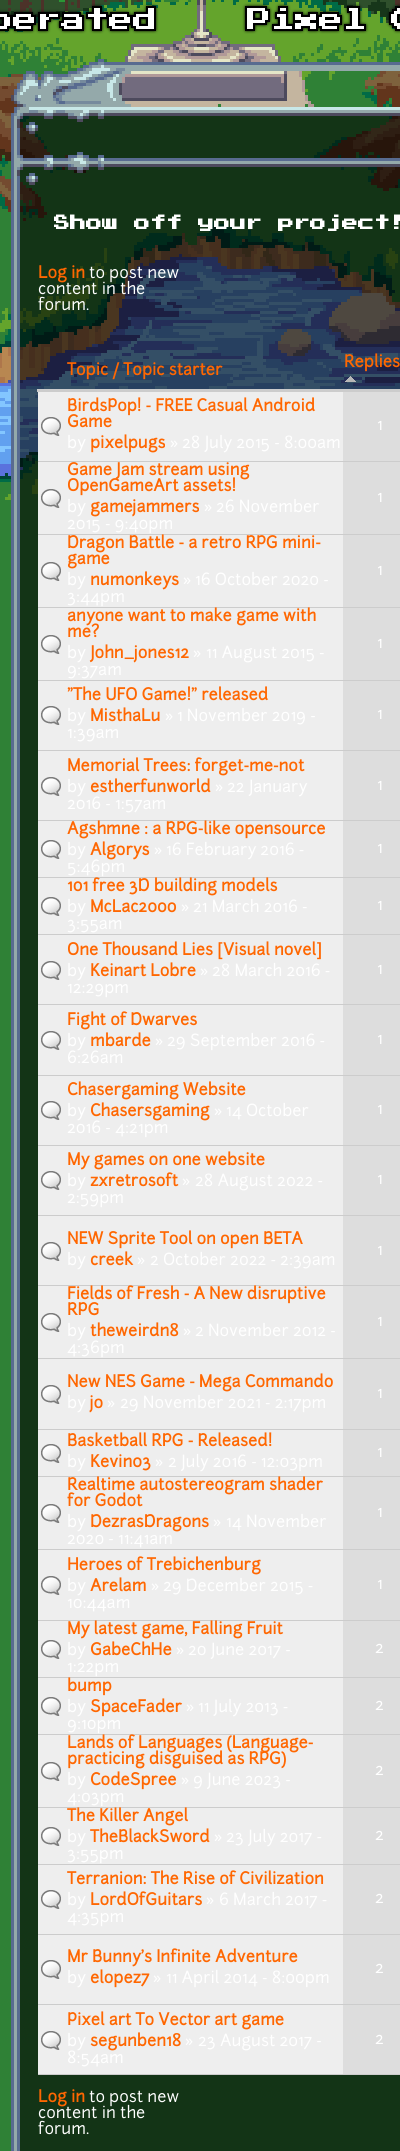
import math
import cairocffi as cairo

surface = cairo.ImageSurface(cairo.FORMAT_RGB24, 400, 2151)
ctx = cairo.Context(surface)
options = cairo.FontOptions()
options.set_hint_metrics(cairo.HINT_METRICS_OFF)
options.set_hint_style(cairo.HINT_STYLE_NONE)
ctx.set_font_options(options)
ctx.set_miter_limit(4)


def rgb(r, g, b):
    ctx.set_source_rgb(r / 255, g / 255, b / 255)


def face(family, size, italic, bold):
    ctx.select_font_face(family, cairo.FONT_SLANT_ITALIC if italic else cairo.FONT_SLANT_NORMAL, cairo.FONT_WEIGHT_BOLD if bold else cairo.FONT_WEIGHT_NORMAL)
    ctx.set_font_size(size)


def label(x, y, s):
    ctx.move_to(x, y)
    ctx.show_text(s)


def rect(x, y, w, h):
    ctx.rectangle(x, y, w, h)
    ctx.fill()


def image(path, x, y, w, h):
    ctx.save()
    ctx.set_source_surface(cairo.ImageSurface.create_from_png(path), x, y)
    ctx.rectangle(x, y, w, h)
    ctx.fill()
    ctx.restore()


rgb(255, 255, 255)
ctx.paint()
image('image0.png', 0, 0, 400, 2151)
image('image1.png', 0, 3, 400, 31)
image('image2.png', 11, 59, 389, 126)
image('image3.png', 11, 185, 389, 1966)
face('Press Start 2P', 16, 0, 1)
rgb(255, 255, 255)
label(54, 231, 'Show off your project!')
face('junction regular', 16, 0, 1)
rgb(255, 103, 1)
label(38, 278, 'Log in')
face('junction regular', 16, 0, 0)
rgb(255, 255, 255)
label(89, 278, 'to post new')
label(38, 294, 'content in the')
label(38, 310, 'forum.')
face('junction regular', 16, 0, 1)
rgb(255, 103, 1)
label(67, 375, 'Topic / Topic starter')
rgb(204, 204, 204)
rect(37, 389, 363, 3)
rgb(255, 103, 1)
label(344, 367, 'Replies')
image('image4.png', 345, 376, 11, 6)
rgb(238, 238, 238)
rect(38, 392, 305, 69)
rgb(204, 204, 204)
rect(38, 461, 362, 1)
image('image5.png', 41, 417, 20, 19)
rgb(255, 103, 1)
label(67, 411, 'BirdsPop! - FREE Casual Android')
label(67, 427, 'Game')
face('junction regular', 16, 0, 0)
rgb(255, 255, 255)
label(67, 448, 'by')
face('junction regular', 16, 0, 1)
rgb(255, 103, 1)
label(90, 448, 'pixelpugs')
face('Noto Sans', 16, 0, 0)
rgb(255, 255, 255)
label(170, 448, '»')
face('junction regular', 16, 0, 0)
label(182, 448, '28 July 2015 - 8:00am')
rgb(221, 221, 221)
rect(343, 392, 57, 69)
rgb(255, 255, 255)
label(377, 430, '1')
rgb(238, 238, 238)
rect(38, 462, 305, 72)
rgb(204, 204, 204)
rect(38, 534, 362, 1)
image('image5.png', 41, 489, 20, 19)
face('junction regular', 16, 0, 1)
rgb(255, 103, 1)
label(67, 475, 'Game Jam stream using')
label(67, 491, 'OpenGameArt assets!')
face('junction regular', 16, 0, 0)
rgb(255, 255, 255)
label(67, 512, 'by')
face('junction regular', 16, 0, 1)
rgb(255, 103, 1)
label(90, 512, 'gamejammers')
face('Noto Sans', 16, 0, 0)
rgb(255, 255, 255)
label(204, 512, '»')
face('junction regular', 16, 0, 0)
label(216, 512, '26 November')
label(67, 529, '2015 - 9:40pm')
rgb(221, 221, 221)
rect(343, 462, 57, 72)
rgb(255, 255, 255)
label(377, 502, '1')
rgb(238, 238, 238)
rect(38, 535, 305, 72)
rgb(204, 204, 204)
rect(38, 607, 362, 1)
image('image5.png', 41, 562, 20, 19)
face('junction regular', 16, 0, 1)
rgb(255, 103, 1)
label(67, 548, 'Dragon Battle - a retro RPG mini-')
label(67, 564, 'game')
face('junction regular', 16, 0, 0)
rgb(255, 255, 255)
label(67, 585, 'by')
face('junction regular', 16, 0, 1)
rgb(255, 103, 1)
label(90, 585, 'numonkeys')
face('Noto Sans', 16, 0, 0)
rgb(255, 255, 255)
label(183, 585, '»')
face('junction regular', 16, 0, 0)
label(195, 585, '16 October 2020 -')
label(67, 602, '3:44pm')
rgb(221, 221, 221)
rect(343, 535, 57, 72)
rgb(255, 255, 255)
label(377, 575, '1')
rgb(238, 238, 238)
rect(38, 608, 305, 72)
rgb(204, 204, 204)
rect(38, 680, 362, 1)
image('image5.png', 41, 635, 20, 19)
face('junction regular', 16, 0, 1)
rgb(255, 103, 1)
label(67, 621, 'anyone want to make game with')
label(67, 637, 'me?')
face('junction regular', 16, 0, 0)
rgb(255, 255, 255)
label(67, 658, 'by')
face('junction regular', 16, 0, 1)
rgb(255, 103, 1)
label(90, 658, 'John_jones12')
face('Noto Sans', 16, 0, 0)
rgb(255, 255, 255)
label(193, 658, '»')
face('junction regular', 16, 0, 0)
label(206, 658, '11 August 2015 -')
label(67, 675, '9:37am')
rgb(221, 221, 221)
rect(343, 608, 57, 72)
rgb(255, 255, 255)
label(377, 648, '1')
rgb(238, 238, 238)
rect(38, 681, 305, 69)
rgb(204, 204, 204)
rect(38, 750, 362, 1)
image('image5.png', 41, 706, 20, 19)
face('junction regular', 16, 0, 1)
rgb(255, 103, 1)
label(67, 700, '"The UFO Game!" released')
face('junction regular', 16, 0, 0)
rgb(255, 255, 255)
label(67, 721, 'by')
face('junction regular', 16, 0, 1)
rgb(255, 103, 1)
label(90, 721, 'MisthaLu')
face('Noto Sans', 16, 0, 0)
rgb(255, 255, 255)
label(165, 721, '»')
face('junction regular', 16, 0, 0)
label(177, 721, '1 November 2019 -')
label(67, 738, '1:39am')
rgb(221, 221, 221)
rect(343, 681, 57, 69)
rgb(255, 255, 255)
label(377, 719, '1')
rgb(238, 238, 238)
rect(38, 751, 305, 69)
rgb(204, 204, 204)
rect(38, 820, 362, 1)
image('image5.png', 41, 777, 20, 19)
face('junction regular', 16, 0, 1)
rgb(255, 103, 1)
label(67, 771, 'Memorial Trees: forget-me-not')
face('junction regular', 16, 0, 0)
rgb(255, 255, 255)
label(67, 792, 'by')
face('junction regular', 16, 0, 1)
rgb(255, 103, 1)
label(90, 792, 'estherfunworld')
face('Noto Sans', 16, 0, 0)
rgb(255, 255, 255)
label(215, 792, '»')
face('junction regular', 16, 0, 0)
label(227, 792, '22 January')
label(67, 809, '2016 - 1:57am')
rgb(221, 221, 221)
rect(343, 751, 57, 69)
rgb(255, 255, 255)
label(377, 790, '1')
rgb(238, 238, 238)
rect(38, 821, 305, 56)
rgb(204, 204, 204)
rect(38, 877, 362, 1)
image('image5.png', 41, 840, 20, 19)
face('junction regular', 16, 0, 1)
rgb(255, 103, 1)
label(67, 834, 'Agshmne : a RPG-like opensource')
face('junction regular', 16, 0, 0)
rgb(255, 255, 255)
label(67, 855, 'by')
face('junction regular', 16, 0, 1)
rgb(255, 103, 1)
label(90, 855, 'Algorys')
face('Noto Sans', 16, 0, 0)
rgb(255, 255, 255)
label(154, 855, '»')
face('junction regular', 16, 0, 0)
label(166, 855, '16 February 2016 -')
label(67, 872, '5:46pm')
rgb(221, 221, 221)
rect(343, 821, 57, 56)
rgb(255, 255, 255)
label(377, 853, '1')
rgb(238, 238, 238)
rect(38, 878, 305, 56)
rgb(204, 204, 204)
rect(38, 934, 362, 1)
image('image5.png', 41, 897, 20, 19)
face('junction regular', 16, 0, 1)
rgb(255, 103, 1)
label(67, 891, '101 free 3D building models')
face('junction regular', 16, 0, 0)
rgb(255, 255, 255)
label(67, 912, 'by')
face('junction regular', 16, 0, 1)
rgb(255, 103, 1)
label(90, 912, 'McLac2000')
face('Noto Sans', 16, 0, 0)
rgb(255, 255, 255)
label(181, 912, '»')
face('junction regular', 16, 0, 0)
label(193, 912, '21 March 2016 -')
label(67, 929, '3:55am')
rgb(221, 221, 221)
rect(343, 878, 57, 56)
rgb(255, 255, 255)
label(377, 910, '1')
rgb(238, 238, 238)
rect(38, 935, 305, 69)
rgb(204, 204, 204)
rect(38, 1004, 362, 1)
image('image5.png', 41, 961, 20, 19)
face('junction regular', 16, 0, 1)
rgb(255, 103, 1)
label(67, 955, 'One Thousand Lies [Visual novel]')
face('junction regular', 16, 0, 0)
rgb(255, 255, 255)
label(67, 976, 'by')
face('junction regular', 16, 0, 1)
rgb(255, 103, 1)
label(90, 976, 'Keinart Lobre')
face('Noto Sans', 16, 0, 0)
rgb(255, 255, 255)
label(200, 976, '»')
face('junction regular', 16, 0, 0)
label(212, 976, '28 March 2016 -')
label(67, 993, '12:29pm')
rgb(221, 221, 221)
rect(343, 935, 57, 69)
rgb(255, 255, 255)
label(377, 974, '1')
rgb(238, 238, 238)
rect(38, 1005, 305, 70)
rgb(204, 204, 204)
rect(38, 1075, 362, 1)
image('image5.png', 41, 1031, 20, 19)
face('junction regular', 16, 0, 1)
rgb(255, 103, 1)
label(67, 1025, 'Fight of Dwarves')
face('junction regular', 16, 0, 0)
rgb(255, 255, 255)
label(67, 1046, 'by')
face('junction regular', 16, 0, 1)
rgb(255, 103, 1)
label(90, 1046, 'mbarde')
face('Noto Sans', 16, 0, 0)
rgb(255, 255, 255)
label(155, 1046, '»')
face('junction regular', 16, 0, 0)
label(167, 1046, '29 September 2016 -')
label(67, 1063, '6:26am')
rgb(221, 221, 221)
rect(343, 1005, 57, 70)
rgb(255, 255, 255)
label(377, 1044, '1')
rgb(238, 238, 238)
rect(38, 1076, 305, 69)
rgb(204, 204, 204)
rect(38, 1145, 362, 1)
image('image5.png', 41, 1101, 20, 19)
face('junction regular', 16, 0, 1)
rgb(255, 103, 1)
label(67, 1095, 'Chasergaming Website')
face('junction regular', 16, 0, 0)
rgb(255, 255, 255)
label(67, 1116, 'by')
face('junction regular', 16, 0, 1)
rgb(255, 103, 1)
label(90, 1116, 'Chasersgaming')
face('Noto Sans', 16, 0, 0)
rgb(255, 255, 255)
label(214, 1116, '»')
face('junction regular', 16, 0, 0)
label(226, 1116, '14 October')
label(67, 1133, '2016 - 4:21pm')
rgb(221, 221, 221)
rect(343, 1076, 57, 69)
rgb(255, 255, 255)
label(377, 1114, '1')
rgb(238, 238, 238)
rect(38, 1146, 305, 69)
rgb(204, 204, 204)
rect(38, 1215, 362, 1)
image('image5.png', 41, 1171, 20, 19)
face('junction regular', 16, 0, 1)
rgb(255, 103, 1)
label(67, 1165, 'My games on one website')
face('junction regular', 16, 0, 0)
rgb(255, 255, 255)
label(67, 1186, 'by')
face('junction regular', 16, 0, 1)
rgb(255, 103, 1)
label(90, 1186, 'zxretrosoft')
face('Noto Sans', 16, 0, 0)
rgb(255, 255, 255)
label(182, 1186, '»')
face('junction regular', 16, 0, 0)
label(195, 1186, '28 August 2022 -')
label(67, 1203, '2:59pm')
rgb(221, 221, 221)
rect(343, 1146, 57, 69)
rgb(255, 255, 255)
label(377, 1184, '1')
rgb(238, 238, 238)
rect(38, 1216, 305, 69)
rgb(204, 204, 204)
rect(38, 1285, 362, 1)
image('image5.png', 41, 1242, 20, 19)
face('junction regular', 16, 0, 1)
rgb(255, 103, 1)
label(67, 1244, 'NEW Sprite Tool on open BETA')
face('junction regular', 16, 0, 0)
rgb(255, 255, 255)
label(67, 1265, 'by')
face('junction regular', 16, 0, 1)
rgb(255, 103, 1)
label(90, 1265, 'creek')
face('Noto Sans', 16, 0, 0)
rgb(255, 255, 255)
label(137, 1265, '»')
face('junction regular', 16, 0, 0)
label(150, 1265, '2 October 2022 - 2:39am')
rgb(221, 221, 221)
rect(343, 1216, 57, 69)
rgb(255, 255, 255)
label(377, 1255, '1')
rgb(238, 238, 238)
rect(38, 1286, 305, 72)
rgb(204, 204, 204)
rect(38, 1358, 362, 1)
image('image5.png', 41, 1313, 20, 19)
face('junction regular', 16, 0, 1)
rgb(255, 103, 1)
label(67, 1299, 'Fields of Fresh - A New disruptive')
label(67, 1315, 'RPG')
face('junction regular', 16, 0, 0)
rgb(255, 255, 255)
label(67, 1336, 'by')
face('junction regular', 16, 0, 1)
rgb(255, 103, 1)
label(90, 1336, 'theweirdn8')
face('Noto Sans', 16, 0, 0)
rgb(255, 255, 255)
label(183, 1336, '»')
face('junction regular', 16, 0, 0)
label(195, 1336, '2 November 2012 -')
label(67, 1353, '4:36pm')
rgb(221, 221, 221)
rect(343, 1286, 57, 72)
rgb(255, 255, 255)
label(377, 1326, '1')
rgb(238, 238, 238)
rect(38, 1359, 305, 70)
rgb(204, 204, 204)
rect(38, 1429, 362, 1)
image('image5.png', 41, 1385, 20, 19)
face('junction regular', 16, 0, 1)
rgb(255, 103, 1)
label(67, 1387, 'New NES Game - Mega Commando')
face('junction regular', 16, 0, 0)
rgb(255, 255, 255)
label(67, 1408, 'by')
face('junction regular', 16, 0, 1)
rgb(255, 103, 1)
label(90, 1408, 'jo')
face('Noto Sans', 16, 0, 0)
rgb(255, 255, 255)
label(107, 1408, '»')
face('junction regular', 16, 0, 0)
label(120, 1408, '29 November 2021 - 2:17pm')
rgb(221, 221, 221)
rect(343, 1359, 57, 70)
rgb(255, 255, 255)
label(377, 1398, '1')
rgb(238, 238, 238)
rect(38, 1430, 305, 46)
rgb(204, 204, 204)
rect(38, 1476, 362, 1)
image('image5.png', 41, 1444, 20, 19)
face('junction regular', 16, 0, 1)
rgb(255, 103, 1)
label(67, 1446, 'Basketball RPG - Released!')
face('junction regular', 16, 0, 0)
rgb(255, 255, 255)
label(67, 1467, 'by')
face('junction regular', 16, 0, 1)
rgb(255, 103, 1)
label(90, 1467, 'Kevin03')
face('Noto Sans', 16, 0, 0)
rgb(255, 255, 255)
label(155, 1467, '»')
face('junction regular', 16, 0, 0)
label(168, 1467, '2 July 2016 - 12:03pm')
rgb(221, 221, 221)
rect(343, 1430, 57, 46)
rgb(255, 255, 255)
label(377, 1457, '1')
rgb(238, 238, 238)
rect(38, 1477, 305, 72)
rgb(204, 204, 204)
rect(38, 1549, 362, 1)
image('image5.png', 41, 1504, 20, 19)
face('junction regular', 16, 0, 1)
rgb(255, 103, 1)
label(67, 1490, 'Realtime autostereogram shader')
label(67, 1506, 'for Godot')
face('junction regular', 16, 0, 0)
rgb(255, 255, 255)
label(67, 1527, 'by')
face('junction regular', 16, 0, 1)
rgb(255, 103, 1)
label(90, 1527, 'DezrasDragons')
face('Noto Sans', 16, 0, 0)
rgb(255, 255, 255)
label(213, 1527, '»')
face('junction regular', 16, 0, 0)
label(226, 1527, '14 November')
label(67, 1544, '2020 - 11:41am')
rgb(221, 221, 221)
rect(343, 1477, 57, 72)
rgb(255, 255, 255)
label(377, 1517, '1')
rgb(238, 238, 238)
rect(38, 1550, 305, 70)
rgb(204, 204, 204)
rect(38, 1620, 362, 1)
image('image5.png', 41, 1576, 20, 19)
face('junction regular', 16, 0, 1)
rgb(255, 103, 1)
label(67, 1570, 'Heroes of Trebichenburg')
face('junction regular', 16, 0, 0)
rgb(255, 255, 255)
label(67, 1591, 'by')
face('junction regular', 16, 0, 1)
rgb(255, 103, 1)
label(90, 1591, 'Arelam')
face('Noto Sans', 16, 0, 0)
rgb(255, 255, 255)
label(151, 1591, '»')
face('junction regular', 16, 0, 0)
label(163, 1591, '29 December 2015 -')
label(67, 1608, '10:44am')
rgb(221, 221, 221)
rect(343, 1550, 57, 70)
rgb(255, 255, 255)
label(377, 1589, '1')
rgb(238, 238, 238)
rect(38, 1621, 305, 56)
rgb(204, 204, 204)
rect(38, 1677, 362, 1)
image('image5.png', 41, 1640, 20, 19)
face('junction regular', 16, 0, 1)
rgb(255, 103, 1)
label(67, 1634, 'My latest game, Falling Fruit')
face('junction regular', 16, 0, 0)
rgb(255, 255, 255)
label(67, 1655, 'by')
face('junction regular', 16, 0, 1)
rgb(255, 103, 1)
label(90, 1655, 'GabeChHe')
face('Noto Sans', 16, 0, 0)
rgb(255, 255, 255)
label(176, 1655, '»')
face('junction regular', 16, 0, 0)
label(188, 1655, '20 June 2017 -')
label(67, 1672, '1:22pm')
rgb(221, 221, 221)
rect(343, 1621, 57, 56)
rgb(255, 255, 255)
label(375, 1653, '2')
rgb(238, 238, 238)
rect(38, 1678, 305, 56)
rgb(204, 204, 204)
rect(38, 1734, 362, 1)
image('image5.png', 41, 1697, 20, 19)
face('junction regular', 16, 0, 1)
rgb(255, 103, 1)
label(67, 1691, 'bump')
face('junction regular', 16, 0, 0)
rgb(255, 255, 255)
label(67, 1712, 'by')
face('junction regular', 16, 0, 1)
rgb(255, 103, 1)
label(90, 1712, 'SpaceFader')
face('Noto Sans', 16, 0, 0)
rgb(255, 255, 255)
label(186, 1712, '»')
face('junction regular', 16, 0, 0)
label(198, 1712, '11 July 2013 -')
label(67, 1729, '9:10pm')
rgb(221, 221, 221)
rect(343, 1678, 57, 56)
rgb(255, 255, 255)
label(375, 1710, '2')
rgb(238, 238, 238)
rect(38, 1735, 305, 72)
rgb(204, 204, 204)
rect(38, 1807, 362, 1)
image('image5.png', 41, 1762, 20, 19)
face('junction regular', 16, 0, 1)
rgb(255, 103, 1)
label(67, 1748, 'Lands of Languages (Language-')
label(67, 1764, 'practicing disguised as RPG)')
face('junction regular', 16, 0, 0)
rgb(255, 255, 255)
label(67, 1785, 'by')
face('junction regular', 16, 0, 1)
rgb(255, 103, 1)
label(90, 1785, 'CodeSpree')
face('Noto Sans', 16, 0, 0)
rgb(255, 255, 255)
label(181, 1785, '»')
face('junction regular', 16, 0, 0)
label(193, 1785, '9 June 2023 -')
label(67, 1802, '4:03pm')
rgb(221, 221, 221)
rect(343, 1735, 57, 72)
rgb(255, 255, 255)
label(375, 1775, '2')
rgb(238, 238, 238)
rect(38, 1808, 305, 56)
rgb(204, 204, 204)
rect(38, 1864, 362, 1)
image('image5.png', 41, 1827, 20, 19)
face('junction regular', 16, 0, 1)
rgb(255, 103, 1)
label(67, 1821, 'The Killer Angel')
face('junction regular', 16, 0, 0)
rgb(255, 255, 255)
label(67, 1842, 'by')
face('junction regular', 16, 0, 1)
rgb(255, 103, 1)
label(90, 1842, 'TheBlackSword')
face('Noto Sans', 16, 0, 0)
rgb(255, 255, 255)
label(214, 1842, '»')
face('junction regular', 16, 0, 0)
label(226, 1842, '23 July 2017 -')
label(67, 1859, '3:55pm')
rgb(221, 221, 221)
rect(343, 1808, 57, 56)
rgb(255, 255, 255)
label(375, 1840, '2')
rgb(238, 238, 238)
rect(38, 1865, 305, 69)
rgb(204, 204, 204)
rect(38, 1934, 362, 1)
image('image5.png', 41, 1890, 20, 19)
face('junction regular', 16, 0, 1)
rgb(255, 103, 1)
label(67, 1884, 'Terranion: The Rise of Civilization')
face('junction regular', 16, 0, 0)
rgb(255, 255, 255)
label(67, 1905, 'by')
face('junction regular', 16, 0, 1)
rgb(255, 103, 1)
label(90, 1905, 'LordOfGuitars')
face('Noto Sans', 16, 0, 0)
rgb(255, 255, 255)
label(206, 1905, '»')
face('junction regular', 16, 0, 0)
label(219, 1905, '6 March 2017 -')
label(67, 1922, '4:35pm')
rgb(221, 221, 221)
rect(343, 1865, 57, 69)
rgb(255, 255, 255)
label(375, 1903, '2')
rgb(238, 238, 238)
rect(38, 1935, 305, 69)
rgb(204, 204, 204)
rect(38, 2004, 362, 1)
image('image5.png', 41, 1960, 20, 19)
face('junction regular', 16, 0, 1)
rgb(255, 103, 1)
label(67, 1962, 'Mr Bunny\'s Infinite Adventure')
face('junction regular', 16, 0, 0)
rgb(255, 255, 255)
label(67, 1983, 'by')
face('junction regular', 16, 0, 1)
rgb(255, 103, 1)
label(90, 1983, 'elopez7')
face('Noto Sans', 16, 0, 0)
rgb(255, 255, 255)
label(153, 1983, '»')
face('junction regular', 16, 0, 0)
label(166, 1983, '11 April 2014 - 8:00pm')
rgb(221, 221, 221)
rect(343, 1935, 57, 69)
rgb(255, 255, 255)
label(375, 1973, '2')
rgb(238, 238, 238)
rect(38, 2005, 305, 69)
rgb(204, 204, 204)
rect(38, 2074, 362, 1)
image('image5.png', 41, 2031, 20, 19)
face('junction regular', 16, 0, 1)
rgb(255, 103, 1)
label(67, 2025, 'Pixel art To Vector art game')
face('junction regular', 16, 0, 0)
rgb(255, 255, 255)
label(67, 2046, 'by')
face('junction regular', 16, 0, 1)
rgb(255, 103, 1)
label(90, 2046, 'segunben18')
face('Noto Sans', 16, 0, 0)
rgb(255, 255, 255)
label(185, 2046, '»')
face('junction regular', 16, 0, 0)
label(198, 2046, '23 August 2017 -')
label(67, 2063, '8:54am')
rgb(221, 221, 221)
rect(343, 2005, 57, 69)
rgb(255, 255, 255)
label(375, 2044, '2')
face('junction regular', 16, 0, 1)
rgb(255, 103, 1)
label(38, 2102, 'Log in')
face('junction regular', 16, 0, 0)
rgb(255, 255, 255)
label(89, 2102, 'to post new')
label(38, 2118, 'content in the')
label(38, 2134, 'forum.')
surface.write_to_png('render.png')
